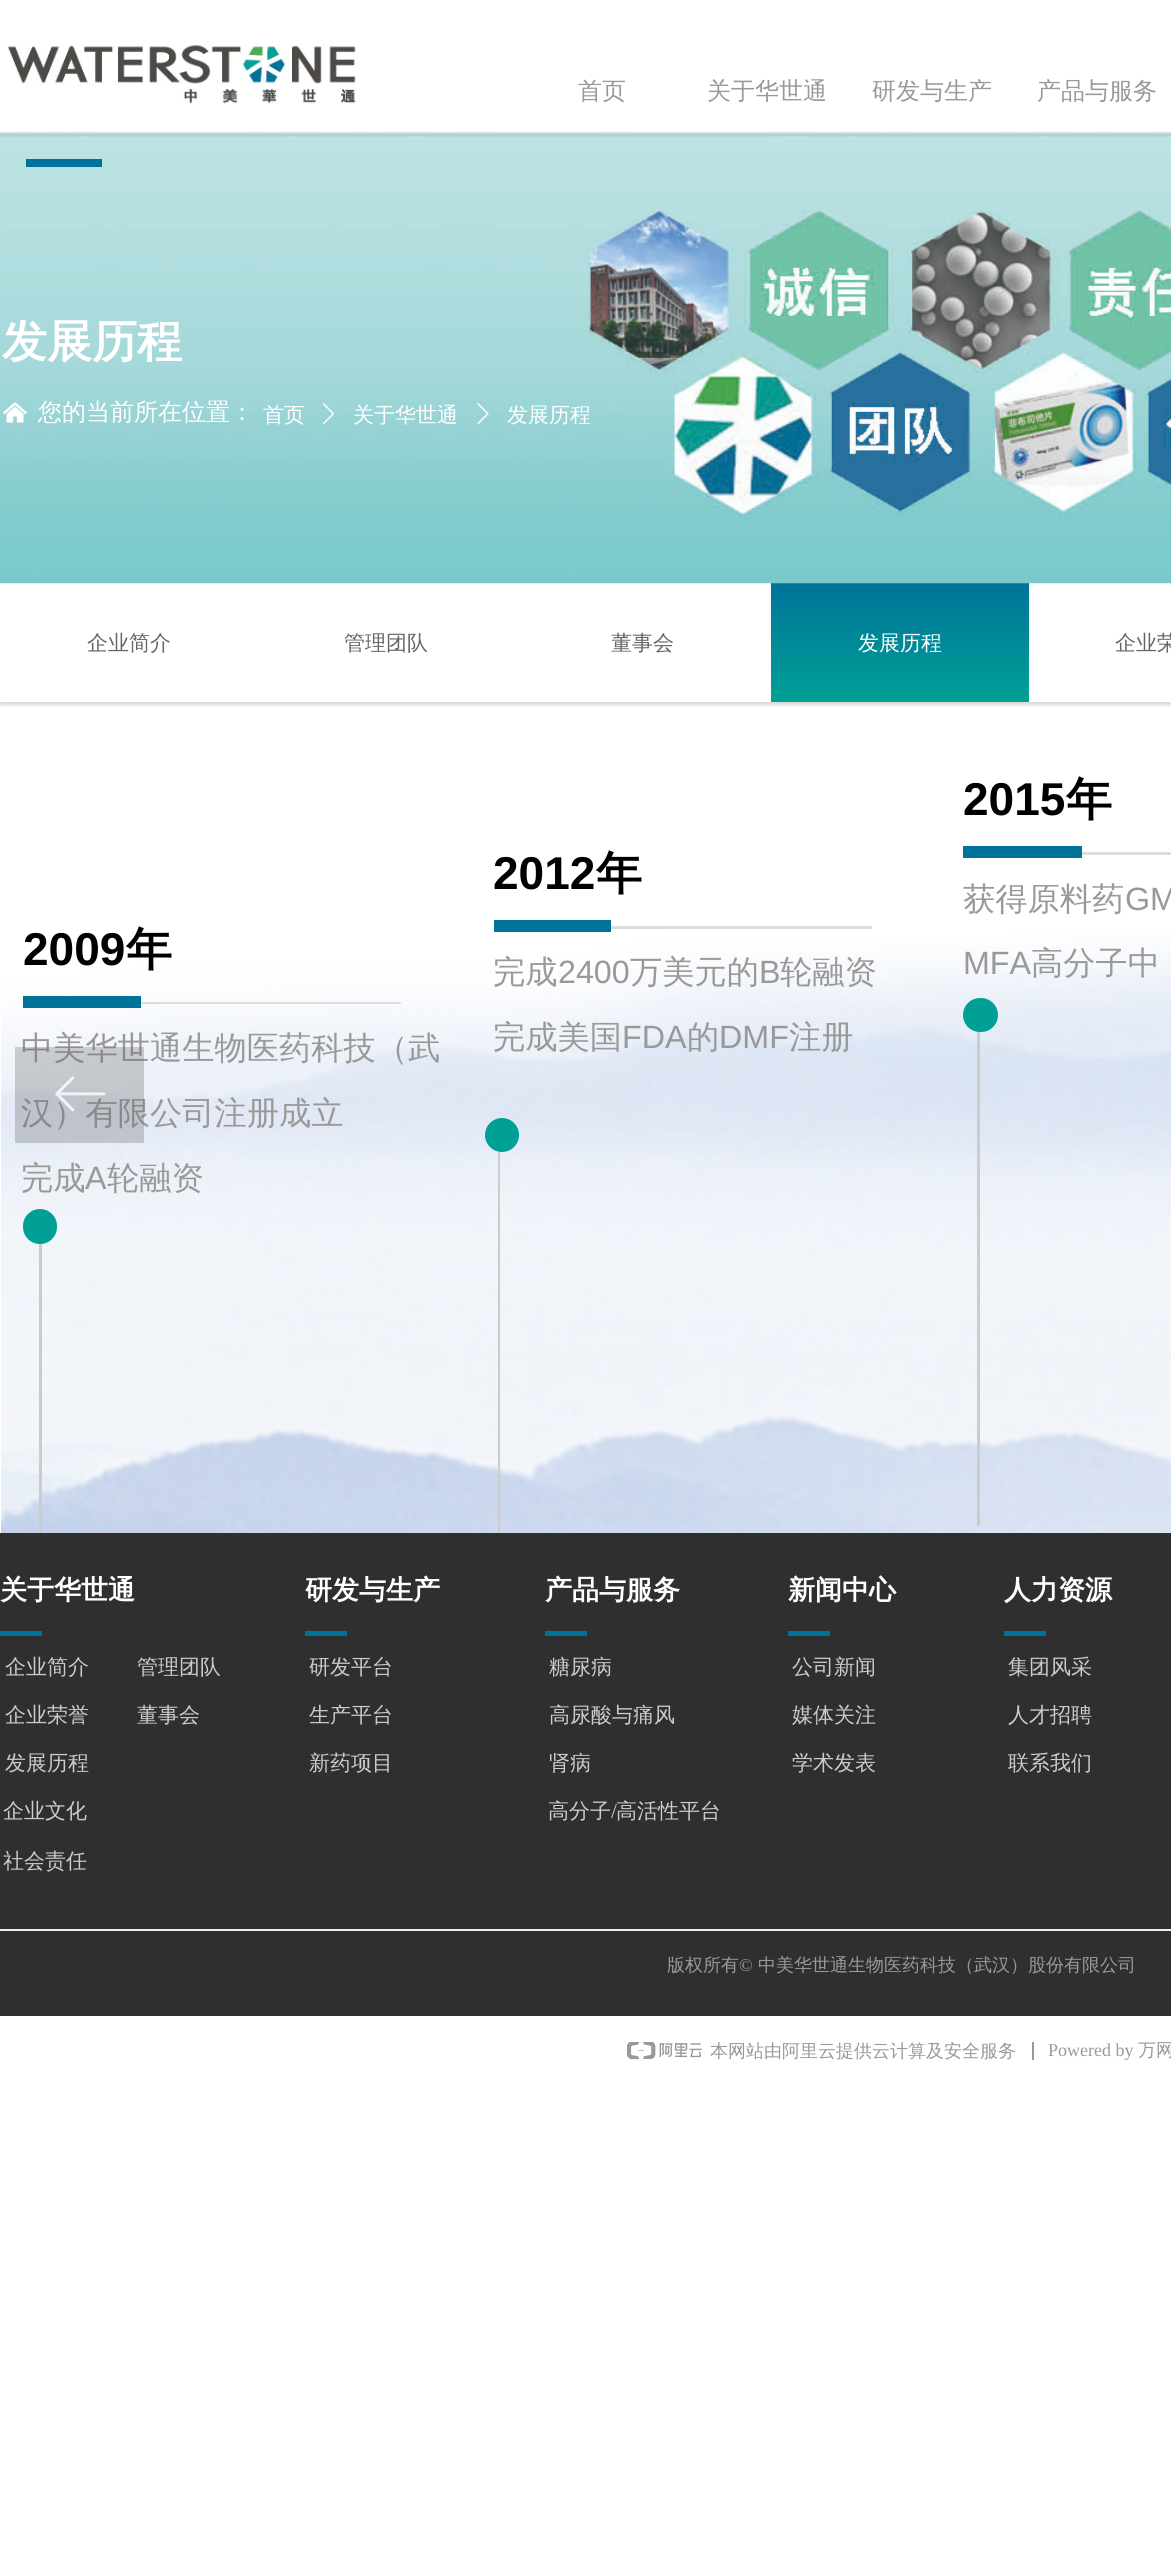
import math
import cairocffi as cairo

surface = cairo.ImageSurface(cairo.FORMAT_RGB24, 1171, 2564)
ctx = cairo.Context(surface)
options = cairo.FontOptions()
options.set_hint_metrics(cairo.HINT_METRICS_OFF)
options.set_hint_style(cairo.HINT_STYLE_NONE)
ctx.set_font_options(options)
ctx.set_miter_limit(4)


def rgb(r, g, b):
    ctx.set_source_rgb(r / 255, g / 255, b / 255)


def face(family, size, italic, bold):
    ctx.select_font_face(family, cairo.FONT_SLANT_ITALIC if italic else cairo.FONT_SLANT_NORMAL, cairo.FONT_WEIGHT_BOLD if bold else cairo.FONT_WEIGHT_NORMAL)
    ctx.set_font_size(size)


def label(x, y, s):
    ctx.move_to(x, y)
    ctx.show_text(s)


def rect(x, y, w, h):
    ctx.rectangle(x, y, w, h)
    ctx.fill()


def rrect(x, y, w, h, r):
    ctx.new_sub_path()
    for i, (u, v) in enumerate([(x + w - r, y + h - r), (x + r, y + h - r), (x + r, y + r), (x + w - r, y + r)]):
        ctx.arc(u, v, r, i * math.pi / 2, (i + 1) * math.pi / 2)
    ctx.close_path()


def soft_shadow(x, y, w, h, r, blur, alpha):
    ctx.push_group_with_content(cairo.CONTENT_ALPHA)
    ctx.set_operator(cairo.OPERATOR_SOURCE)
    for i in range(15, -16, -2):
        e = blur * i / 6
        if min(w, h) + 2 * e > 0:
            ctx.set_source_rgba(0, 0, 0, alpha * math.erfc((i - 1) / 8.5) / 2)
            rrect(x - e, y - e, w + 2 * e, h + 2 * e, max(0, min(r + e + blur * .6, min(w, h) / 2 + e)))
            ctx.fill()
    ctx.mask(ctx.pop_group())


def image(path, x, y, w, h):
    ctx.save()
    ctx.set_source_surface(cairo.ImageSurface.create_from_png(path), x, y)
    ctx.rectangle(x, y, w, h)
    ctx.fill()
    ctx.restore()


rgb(255, 255, 255)
ctx.paint()
ctx.save()
ctx.rectangle(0, 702, 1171, 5)
ctx.clip()
rgb(0, 0, 0)
soft_shadow(0, 585, 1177, 120, 0, 2, 0.16)
ctx.restore()
gradient = cairo.LinearGradient(900, 582, 900, 702)
gradient.add_color_stop_rgba(0, 0, 0.451, 0.604, 1)
gradient.add_color_stop_rgba(1, 0, 0.627, 0.588, 1)
ctx.set_source(gradient)
rect(771, 583, 258, 119)
image('image1.png', 0, 133, 1171, 451)
ctx.save()
ctx.rectangle(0, 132, 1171, 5)
ctx.clip()
rgb(0, 0, 0)
soft_shadow(-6, 3, 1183, 132, 0, 2, 0.16)
ctx.restore()
image('image0.png', 7, 45, 349, 59)
face('WenQuanYi Zen Hei Medium', 24, 0, 0)
rgb(153, 153, 153)
label(578, 99, '首页')
label(707, 99, '关于华世通')
label(872, 99, '研发与生产')
label(1037, 99, '产品与服务')
rgb(0, 115, 154)
rect(26, 159, 76, 8)
face('WenQuanYi Zen Hei', 45, 0, 1)
rgb(255, 255, 255)
label(2, 357, '发展历程')
image('image2.png', 3, 402, 24, 21)
face('WenQuanYi Zen Hei Medium', 24, 0, 0)
label(38, 420, '您的当前所在位置：')
face('WenQuanYi Zen Hei Medium', 21, 0, 0)
label(263, 422, '首页')
image('image3.png', 322, 403, 12, 22)
label(353, 422, '关于华世通')
image('image4.png', 477, 403, 12, 21)
label(507, 422, '发展历程')
rgb(102, 102, 102)
label(87, 650, '企业简介')
label(344, 650, '管理团队')
label(611, 650, '董事会')
rgb(255, 255, 255)
label(858, 650, '发展历程')
rgb(102, 102, 102)
label(1115, 650, '企业荣')
image('image5.png', 1, 935, 1170, 598)
face('Liberation Sans', 46, 0, 1)
rgb(0, 0, 0)
label(23, 965, '2009')
face('WenQuanYi Zen Hei', 46, 0, 1)
label(126, 965, '年')
rgb(0, 115, 154)
rect(23, 996, 118, 12)
rgb(221, 221, 221)
rect(141, 1002, 260, 2)
face('WenQuanYi Zen Hei Medium', 32.25, 0, 0)
rgb(153, 153, 153)
label(21, 1059, '中美华世通生物医药科技（武')
label(21, 1124, '汉）有限公司注册成立')
label(21, 1189, '完成')
face('Liberation Sans', 32.25, 0, 0)
label(85, 1189, 'A')
face('WenQuanYi Zen Hei Medium', 32.25, 0, 0)
label(107, 1189, '轮融资')
face('Liberation Sans', 46, 0, 1)
rgb(0, 0, 0)
label(493, 889, '2012')
face('WenQuanYi Zen Hei', 46, 0, 1)
label(596, 889, '年')
rgb(0, 115, 154)
rect(494, 920, 117, 12)
rgb(221, 221, 221)
rect(611, 926, 261, 3)
face('WenQuanYi Zen Hei Medium', 32.25, 0, 0)
rgb(153, 153, 153)
label(493, 983, '完成')
face('Liberation Sans', 32.25, 0, 0)
label(558, 983, '2400')
face('WenQuanYi Zen Hei Medium', 32.25, 0, 0)
label(630, 983, '万美元的')
face('Liberation Sans', 32.25, 0, 0)
label(759, 983, 'B')
face('WenQuanYi Zen Hei Medium', 32.25, 0, 0)
label(780, 983, '轮融资')
label(493, 1048, '完成美国')
face('Liberation Sans', 32.25, 0, 0)
label(622, 1048, 'FDA')
face('WenQuanYi Zen Hei Medium', 32.25, 0, 0)
label(687, 1048, '的')
face('Liberation Sans', 32.25, 0, 0)
label(719, 1048, 'DMF')
face('WenQuanYi Zen Hei Medium', 32.25, 0, 0)
label(789, 1048, '注册')
face('Liberation Sans', 46, 0, 1)
rgb(0, 0, 0)
label(963, 815, '2015')
face('WenQuanYi Zen Hei', 46, 0, 1)
label(1066, 815, '年')
rgb(0, 115, 154)
rect(963, 846, 119, 12)
rgb(221, 221, 221)
rect(1082, 852, 89, 3)
face('WenQuanYi Zen Hei Medium', 32.25, 0, 0)
rgb(153, 153, 153)
label(963, 910, '获得原料药')
face('Liberation Sans', 32.25, 0, 0)
label(1125, 910, 'GM')
label(963, 974, 'MFA')
face('WenQuanYi Zen Hei Medium', 32.25, 0, 0)
label(1031, 974, '高分子中')
rgb(204, 204, 204)
rect(977, 1031, 3, 495)
rgb(0, 160, 150)
rrect(963, 998, 35, 34, 17)
ctx.fill()
rgb(204, 204, 204)
rect(498, 1151, 2, 382)
rgb(0, 160, 150)
ctx.arc(502, 1135, 17, 0, 2 * math.pi)
ctx.fill()
rgb(204, 204, 204)
rect(39, 1243, 3, 290)
rgb(0, 160, 150)
rrect(23, 1209, 34, 35, 17)
ctx.fill()
ctx.set_source_rgba(0.4, 0.4, 0.4, 0.3)
rect(15, 1047, 129, 96)
image('image6.png', 55, 1076, 51, 36)
rgb(47, 47, 47)
rect(0, 1533, 1171, 483)
face('WenQuanYi Zen Hei', 27, 0, 1)
rgb(255, 255, 255)
label(0, 1599, '关于华世通')
label(305, 1599, '研发与生产')
label(545, 1599, '产品与服务')
label(788, 1599, '新闻中心')
label(1004, 1599, '人力资源')
rgb(0, 115, 154)
rect(0, 1631, 42, 5)
rect(305, 1631, 42, 5)
rect(545, 1631, 42, 5)
rect(788, 1631, 42, 5)
rect(1004, 1631, 42, 5)
face('WenQuanYi Zen Hei Medium', 21, 0, 0)
rgb(204, 204, 204)
label(5, 1674, '企业简介')
label(137, 1674, '管理团队')
label(309, 1674, '研发平台')
label(549, 1674, '糖尿病')
label(792, 1674, '公司新闻')
label(1008, 1674, '集团风采')
label(5, 1722, '企业荣誉')
label(137, 1722, '董事会')
label(309, 1722, '生产平台')
label(549, 1722, '高尿酸与痛风')
label(792, 1722, '媒体关注')
label(1008, 1722, '人才招聘')
label(5, 1770, '发展历程')
label(309, 1770, '新药项目')
label(549, 1770, '肾病')
label(792, 1770, '学术发表')
label(1008, 1770, '联系我们')
label(3, 1818, '企业文化')
label(548, 1818, '高分子')
face('Liberation Serif', 21, 0, 0)
label(611, 1818, '/')
face('WenQuanYi Zen Hei Medium', 21, 0, 0)
label(616, 1818, '高活性平台')
label(3, 1868, '社会责任')
rgb(238, 238, 238)
rect(0, 1929, 1171, 2)
face('WenQuanYi Zen Hei Medium', 18, 0, 0)
rgb(153, 153, 153)
label(667, 1971, '版权所有')
face('Liberation Serif', 18, 0, 0)
label(739, 1971, '©')
face('WenQuanYi Zen Hei Medium', 18, 0, 0)
label(758, 1971, '中美华世通生物医药科技（武汉）股份有限公司')
image('image7.png', 627, 2042, 75, 18)
label(710, 2057, '本网站由阿里云提供云计算及安全服务')
rgb(152, 152, 152)
rect(1032, 2042, 2, 18)
face('Liberation Serif', 18, 0, 0)
rgb(153, 153, 153)
label(1048, 2056, 'Powered by')
face('WenQuanYi Zen Hei Medium', 18, 0, 0)
label(1138, 2056, '万网')
surface.write_to_png('render.png')
